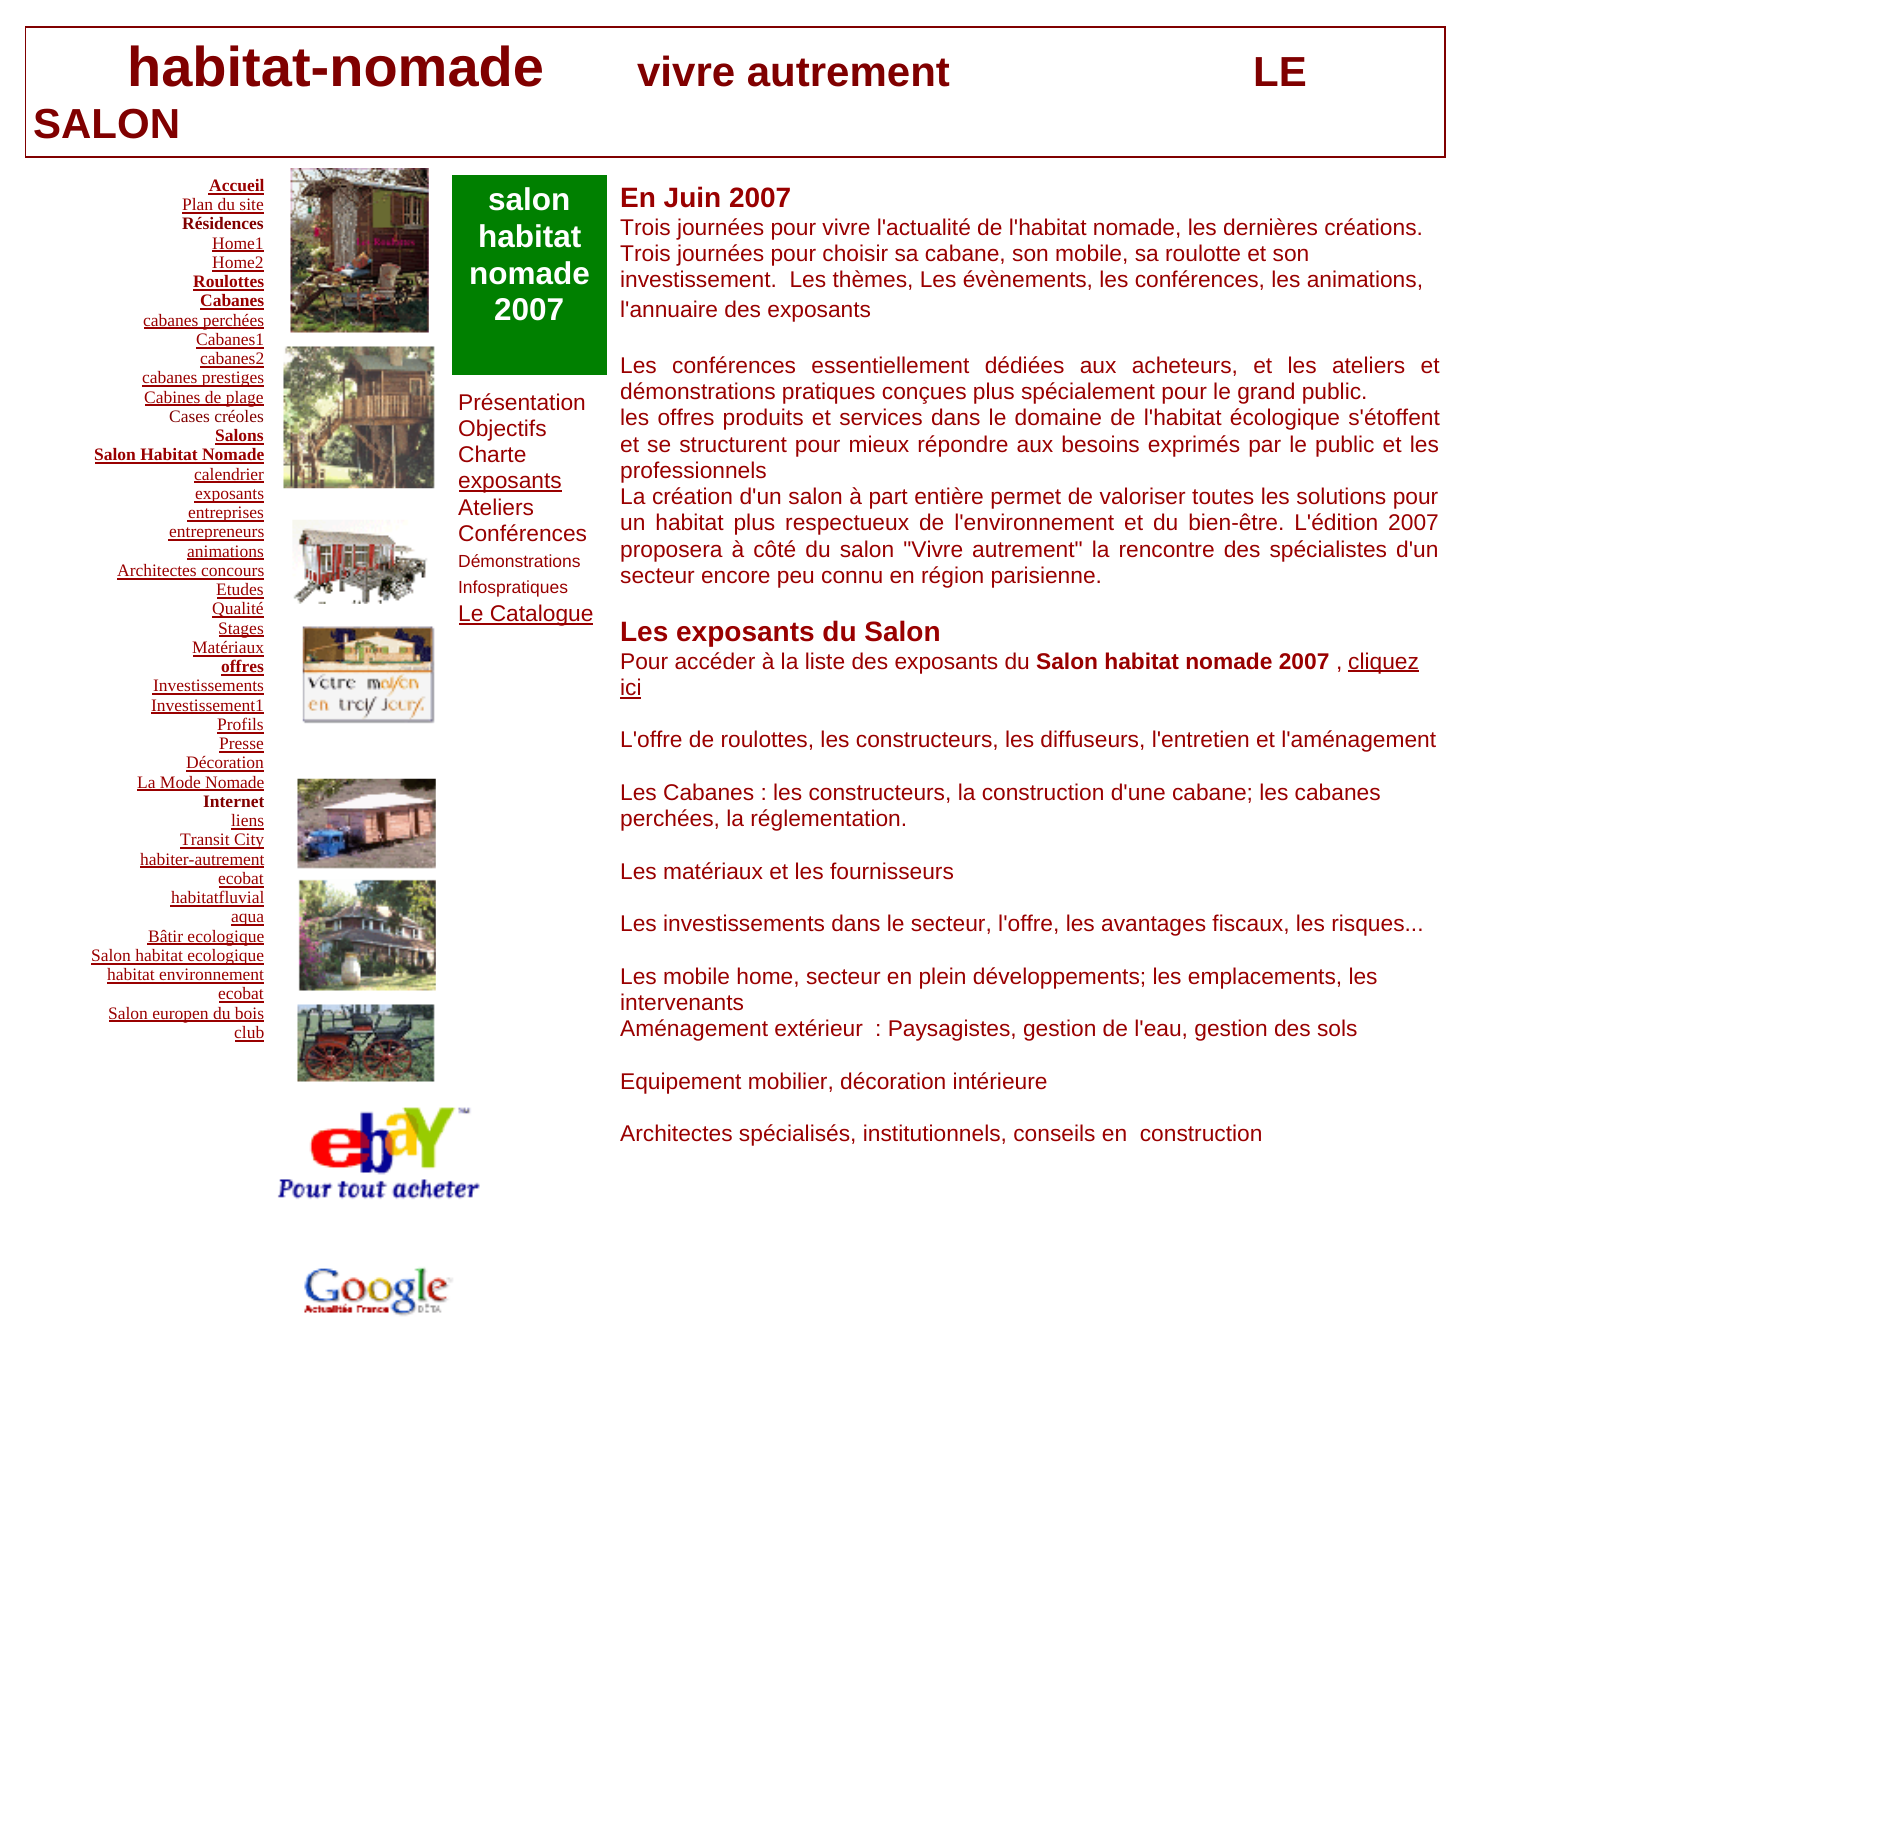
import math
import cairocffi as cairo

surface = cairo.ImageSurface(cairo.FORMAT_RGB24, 1879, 1839)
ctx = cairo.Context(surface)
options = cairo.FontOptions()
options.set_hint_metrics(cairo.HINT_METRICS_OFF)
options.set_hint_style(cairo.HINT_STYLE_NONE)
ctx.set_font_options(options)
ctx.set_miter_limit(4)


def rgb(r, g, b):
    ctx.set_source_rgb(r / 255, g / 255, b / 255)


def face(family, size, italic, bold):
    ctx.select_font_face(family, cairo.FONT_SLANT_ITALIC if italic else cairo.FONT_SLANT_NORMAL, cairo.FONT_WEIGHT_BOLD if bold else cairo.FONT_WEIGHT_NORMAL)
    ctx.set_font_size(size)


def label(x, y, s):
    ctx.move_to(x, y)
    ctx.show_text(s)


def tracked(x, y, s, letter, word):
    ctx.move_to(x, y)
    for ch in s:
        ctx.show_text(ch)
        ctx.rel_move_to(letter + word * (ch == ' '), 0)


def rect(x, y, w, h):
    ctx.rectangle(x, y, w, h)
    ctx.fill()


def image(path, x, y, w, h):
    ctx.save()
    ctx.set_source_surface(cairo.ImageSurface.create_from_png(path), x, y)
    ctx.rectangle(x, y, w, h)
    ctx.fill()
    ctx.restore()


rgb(255, 255, 255)
ctx.paint()
rgb(128, 0, 0)
rect(25, 26, 1421, 2)
rect(25, 28, 1, 128)
face('Liberation Sans', 56, 0, 1)
label(127, 86, 'habitat-nomade')
face('Liberation Sans', 42, 0, 1)
label(637, 86, 'vivre autrement')
label(1253, 86, 'LE')
label(33, 138, 'SALON')
rect(1444, 28, 2, 128)
rect(25, 156, 1421, 2)
face('Liberation Serif', 17.5, 0, 1)
rgb(153, 0, 0)
label(209, 191, 'Accueil')
rect(208, 193, 56, 2)
face('Liberation Serif', 17.5, 0, 0)
label(182, 210, 'Plan du site')
rect(182, 212, 82, 2)
face('Liberation Serif', 17.5, 0, 1)
rgb(128, 0, 0)
label(182, 229, 'Résidences')
face('Liberation Serif', 17.5, 0, 0)
rgb(153, 0, 0)
label(212, 249, 'Home1')
rect(212, 250, 52, 2)
label(212, 268, 'Home2')
rect(212, 270, 52, 2)
face('Liberation Serif', 17.5, 0, 1)
label(193, 287, 'Roulottes')
rect(193, 289, 71, 2)
label(200, 306, 'Cabanes')
rect(200, 308, 64, 2)
rect(144, 327, 120, 2)
face('Liberation Serif', 17.5, 0, 0)
label(143, 326, 'cabanes perchées')
label(196, 345, 'Cabanes1')
rect(196, 347, 68, 2)
label(200, 364, 'cabanes2')
rect(200, 366, 64, 2)
rect(142, 385, 122, 2)
label(142, 383, 'cabanes prestiges')
rect(145, 404, 119, 2)
label(144, 403, 'Cabines de plage')
rgb(128, 0, 0)
label(169, 422, 'Cases créoles')
face('Liberation Serif', 17.5, 0, 1)
rgb(153, 0, 0)
label(215, 441, 'Salons')
rect(215, 443, 49, 2)
label(94, 460, 'Salon Habitat Nomade')
rect(95, 462, 169, 2)
face('Liberation Serif', 17.5, 0, 0)
label(194, 480, 'calendrier')
rect(194, 481, 70, 2)
rect(194, 501, 70, 2)
label(195, 499, 'exposants')
rect(187, 520, 77, 2)
label(188, 518, 'entreprises')
rect(168, 539, 96, 2)
label(169, 537, 'entrepreneurs')
label(187, 557, 'animations')
rect(187, 558, 77, 2)
label(117, 576, 'Architectes concours')
rect(117, 578, 147, 2)
label(216, 595, 'Etudes')
rect(217, 597, 47, 2)
rect(212, 616, 52, 2)
label(212, 614, 'Qualité')
rect(219, 635, 45, 2)
label(218, 634, 'Stages')
label(192, 653, 'Matériaux')
rect(193, 655, 71, 2)
face('Liberation Serif', 17.5, 0, 1)
label(221, 672, 'offres')
rect(221, 674, 43, 2)
face('Liberation Serif', 17.5, 0, 0)
label(153, 691, 'Investissements')
rect(152, 693, 112, 2)
label(151, 711, 'Investissement1')
rect(151, 712, 113, 2)
label(217, 730, 'Profils')
rect(217, 732, 47, 2)
label(219, 749, 'Presse')
rect(219, 751, 45, 2)
label(186, 768, 'Décoration')
rect(186, 770, 78, 2)
label(137, 788, 'La Mode Nomade')
rect(137, 789, 127, 2)
face('Liberation Serif', 17.5, 0, 1)
rgb(128, 0, 0)
label(203, 807, 'Internet')
face('Liberation Serif', 17.5, 0, 0)
rgb(153, 0, 0)
label(231, 826, 'liens')
rect(231, 828, 33, 2)
rect(180, 847, 84, 2)
label(180, 845, 'Transit City')
label(140, 865, 'habiter-autrement')
rect(140, 866, 124, 2)
label(218, 884, 'ecobat')
rect(219, 886, 45, 2)
label(171, 903, 'habitatfluvial')
rect(170, 905, 94, 2)
rect(231, 924, 33, 2)
label(231, 922, 'aqua')
rect(147, 943, 117, 2)
label(148, 942, 'Bâtir ecologique')
rect(91, 963, 173, 2)
label(91, 961, 'Salon habitat ecologique')
label(107, 980, 'habitat environnement')
rect(107, 982, 157, 2)
label(218, 999, 'ecobat')
rect(219, 1001, 45, 2)
rect(109, 1020, 155, 2)
label(108, 1019, 'Salon europen du bois')
label(234, 1038, 'club')
rect(235, 1040, 29, 2)
image('image0.png', 290, 168, 139, 165)
image('image1.png', 283, 346, 152, 143)
rgb(0, 128, 0)
rect(452, 175, 155, 200)
face('Liberation Sans', 31.5, 0, 1)
rgb(255, 255, 255)
label(488, 210, 'salon')
label(478, 247, 'habitat')
label(469, 284, 'nomade')
label(494, 320, '2007')
face('Liberation Sans', 28, 0, 1)
rgb(153, 0, 0)
label(620, 207, 'En Juin 2007')
face('Liberation Sans', 22.75, 0, 0)
label(620, 235, 'Trois journées pour vivre l\'actualité de l\'habitat nomade, les dernières créations.')
label(620, 261, 'Trois journées pour choisir sa cabane, son mobile, sa roulotte et son')
label(620, 287, 'investissement.  Les thèmes, Les évènements, les conférences, les animations,')
label(620, 317, 'l\'annuaire des exposants')
tracked(620, 373, 'Les conférences essentiellement dédiées aux acheteurs, et les ateliers et', 0, 9)
label(620, 399, 'démonstrations pratiques conçues plus spécialement pour le grand public.')
tracked(620, 425, 'les offres produits et services dans le domaine de l\'habitat écologique s\'étoffent', 0, 2)
tracked(620, 452, 'et se structurent pour mieux répondre aux besoins exprimés par le public et les', 0, 1.8)
label(620, 478, 'professionnels')
tracked(620, 504, 'La création d\'un salon à part entière permet de valoriser toutes les solutions pour', 0, 0.25)
tracked(620, 530, 'un habitat plus respectueux de l\'environnement et du bien-être. L\'édition 2007', 0, 3.6)
tracked(620, 557, 'proposera à côté du salon "Vivre autrement" la rencontre des spécialistes d\'un', 0, 2.75)
label(620, 583, 'secteur encore peu connu en région parisienne.')
face('Liberation Sans', 28, 0, 1)
label(620, 641, 'Les exposants du Salon')
face('Liberation Sans', 22.75, 0, 0)
label(620, 669, 'Pour accéder à la liste des exposants du')
face('Liberation Sans', 22.75, 0, 1)
label(1036, 669, 'Salon habitat nomade 2007')
face('Liberation Sans', 22.75, 0, 0)
label(1336, 669, ',')
rect(1348, 670, 71, 2)
label(1348, 669, 'cliquez')
label(620, 695, 'ici')
rect(620, 697, 21, 2)
label(620, 747, 'L\'offre de roulottes, les constructeurs, les diffuseurs, l\'entretien et l\'aménagement')
label(620, 800, 'Les Cabanes : les constructeurs, la construction d\'une cabane; les cabanes')
label(620, 826, 'perchées, la réglementation.')
label(620, 879, 'Les matériaux et les fournisseurs')
label(620, 931, 'Les investissements dans le secteur, l\'offre, les avantages fiscaux, les risques...')
label(620, 984, 'Les mobile home, secteur en plein développements; les emplacements, les')
label(620, 1010, 'intervenants')
label(620, 1036, 'Aménagement extérieur')
label(875, 1036, ': Paysagistes, gestion de l\'eau, gestion des sols')
label(620, 1089, 'Equipement mobilier, décoration intérieure')
label(620, 1141, 'Architectes spécialisés, institutionnels, conseils en  construction')
image('image2.png', 292, 519, 136, 85)
label(458, 410, 'Présentation')
label(458, 436, 'Objectifs')
label(458, 462, 'Charte')
rect(459, 490, 103, 2)
label(458, 488, 'exposants')
label(458, 515, 'Ateliers')
label(458, 541, 'Conférences')
face('Liberation Sans', 17.5, 0, 0)
label(458, 567, 'Démonstrations')
label(458, 593, 'Infospratiques')
rect(459, 623, 134, 2)
face('Liberation Sans', 22.75, 0, 0)
label(458, 621, 'Le Catalogue')
image('image3.png', 302, 626, 133, 98)
image('image4.png', 297, 778, 139, 91)
image('image5.png', 298, 879, 138, 112)
image('image6.png', 297, 1004, 138, 78)
image('image7.png', 277, 1107, 203, 93)
image('image8.png', 304, 1266, 150, 51)
surface.write_to_png('render.png')
